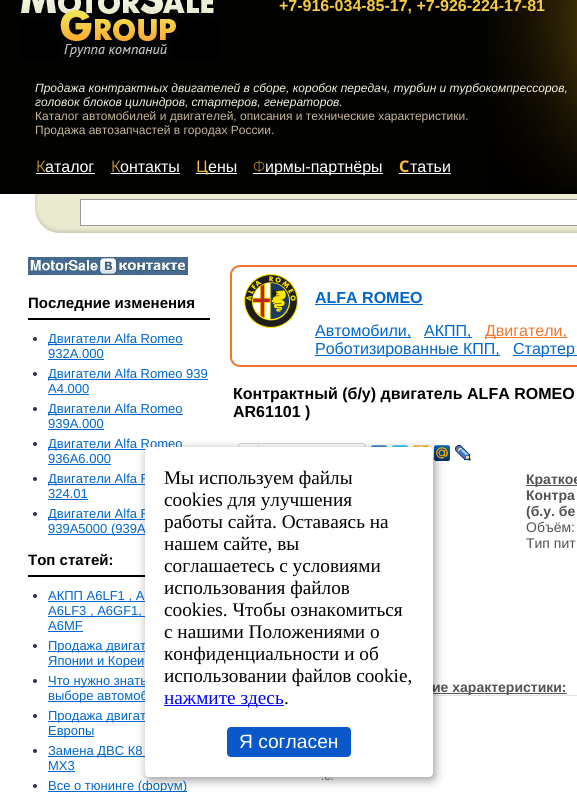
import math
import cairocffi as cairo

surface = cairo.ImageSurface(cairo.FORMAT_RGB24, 577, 792)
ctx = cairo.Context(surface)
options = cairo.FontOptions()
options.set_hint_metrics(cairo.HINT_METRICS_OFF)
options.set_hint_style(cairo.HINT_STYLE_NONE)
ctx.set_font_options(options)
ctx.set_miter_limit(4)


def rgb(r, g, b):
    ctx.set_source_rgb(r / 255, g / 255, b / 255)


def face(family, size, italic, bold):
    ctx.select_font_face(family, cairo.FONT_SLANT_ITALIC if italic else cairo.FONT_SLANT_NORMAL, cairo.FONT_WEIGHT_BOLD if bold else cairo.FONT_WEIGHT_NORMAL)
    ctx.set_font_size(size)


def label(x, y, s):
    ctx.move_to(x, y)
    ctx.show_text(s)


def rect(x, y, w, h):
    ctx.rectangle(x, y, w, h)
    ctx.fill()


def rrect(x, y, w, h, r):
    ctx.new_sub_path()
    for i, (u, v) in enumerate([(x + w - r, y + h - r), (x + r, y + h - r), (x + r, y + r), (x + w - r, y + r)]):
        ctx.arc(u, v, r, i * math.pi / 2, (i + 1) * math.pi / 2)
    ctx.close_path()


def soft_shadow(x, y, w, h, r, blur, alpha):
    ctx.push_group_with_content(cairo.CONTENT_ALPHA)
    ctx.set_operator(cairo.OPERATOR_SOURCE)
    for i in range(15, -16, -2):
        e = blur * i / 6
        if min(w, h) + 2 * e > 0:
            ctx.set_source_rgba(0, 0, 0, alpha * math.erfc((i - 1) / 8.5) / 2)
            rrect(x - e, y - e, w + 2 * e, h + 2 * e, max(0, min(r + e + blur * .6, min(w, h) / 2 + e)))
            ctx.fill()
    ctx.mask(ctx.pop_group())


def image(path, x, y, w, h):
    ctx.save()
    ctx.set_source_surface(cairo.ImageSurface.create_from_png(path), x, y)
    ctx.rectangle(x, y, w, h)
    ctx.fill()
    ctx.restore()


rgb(255, 255, 255)
ctx.paint()
rgb(2, 2, 1)
rect(0, 0, 577, 194)
image('image0.png', 19, 0, 200, 59)
image('image1.png', 488, 0, 89, 190)
face('Liberation Sans', 16, 0, 1)
rgb(246, 202, 69)
label(279, 11, '+7-916-034-85-17, +7-926-224-17-81')
face('Liberation Sans', 12, 1, 0)
rgb(241, 243, 223)
label(35, 92, 'Продажа контрактных двигателей в сборе, коробок передач, турбин и турбокомпрессоров,')
label(35, 106, 'головок блоков цилиндров, стартеров, генераторов.')
face('Liberation Sans', 12, 0, 0)
rgb(197, 182, 155)
label(35, 120, 'Каталог автомобилей и двигателей, описания и технические характеристики.')
label(35, 134, 'Продажа автозапчастей в городах России.')
face('Noto Sans Light', 16, 0, 0)
rgb(249, 191, 61)
label(36, 172, 'К')
rgb(255, 255, 255)
rect(36, 173, 59, 1)
face('Liberation Sans', 16, 0, 0)
label(45, 172, 'аталог')
face('Noto Sans Light', 16, 0, 0)
rgb(249, 191, 61)
label(111, 172, 'К')
rgb(255, 255, 255)
rect(111, 173, 69, 1)
face('Liberation Sans', 16, 0, 0)
label(120, 172, 'онтакты')
rect(196, 173, 41, 1)
face('Noto Sans', 16, 0, 0)
rgb(249, 191, 61)
label(196, 172, 'Ц')
face('Liberation Sans', 16, 0, 0)
rgb(255, 255, 255)
label(208, 172, 'ены')
face('Noto Sans ExtraLight', 16, 0, 0)
rgb(249, 191, 61)
label(253, 172, 'Ф')
rgb(255, 255, 255)
rect(253, 173, 130, 1)
face('Liberation Sans', 16, 0, 0)
label(265, 172, 'ирмы-партнёры')
face('Noto Sans', 16, 0, 1)
rgb(249, 191, 61)
label(399, 172, 'С')
rgb(255, 255, 255)
rect(399, 173, 52, 1)
face('Liberation Sans', 16, 0, 0)
label(410, 172, 'татьи')
image('image2.png', 35, 194, 30, 39)
image('image3.png', 65, 194, 512, 39)
ctx.rectangle(80.5, 199.5, 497, 26)
ctx.fill_preserve()
rgb(153, 153, 153)
ctx.set_line_width(1)
ctx.stroke()
image('image4.png', 28, 257, 160, 18)
face('Liberation Sans', 15, 0, 1)
rgb(0, 0, 0)
label(28, 308, 'Последние изменения')
rect(28, 318, 182, 2)
rgb(48, 48, 85)
ctx.new_path()
ctx.arc(35, 339, 2, 0, 2 * math.pi)
ctx.fill()
rgb(0, 102, 206)
rect(48, 344, 135, 1)
face('Liberation Sans', 13, 0, 0)
label(48, 343, 'Двигатели Alfa Romeo')
label(48, 358, '932A.000')
rect(48, 359, 56, 1)
rgb(48, 48, 85)
ctx.new_path()
ctx.arc(35, 374, 2, 0, 2 * math.pi)
ctx.fill()
rgb(0, 102, 206)
rect(48, 379, 160, 1)
label(48, 378, 'Двигатели Alfa Romeo 939')
label(48, 393, 'A4.000')
rect(48, 394, 41, 1)
rgb(48, 48, 85)
ctx.new_path()
ctx.arc(35, 409, 2, 0, 2 * math.pi)
ctx.fill()
rgb(0, 102, 206)
rect(48, 414, 135, 1)
label(48, 413, 'Двигатели Alfa Romeo')
label(48, 428, '939A.000')
rect(48, 429, 56, 1)
rgb(48, 48, 85)
ctx.new_path()
ctx.arc(35, 444, 2, 0, 2 * math.pi)
ctx.fill()
rgb(0, 102, 206)
rect(48, 449, 98, 1)
label(48, 448, 'Двигатели Alfa Romeo')
label(48, 463, '936A6.000')
rect(48, 464, 63, 1)
rgb(48, 48, 85)
ctx.new_path()
ctx.arc(35, 479, 2, 0, 2 * math.pi)
ctx.fill()
rgb(0, 102, 206)
rect(48, 484, 97, 1)
label(48, 483, 'Двигатели Alfa R')
label(48, 498, '324.01')
rect(48, 499, 40, 1)
rgb(48, 48, 85)
ctx.new_path()
ctx.arc(35, 514, 2, 0, 2 * math.pi)
ctx.fill()
rgb(0, 102, 206)
rect(48, 519, 97, 1)
label(48, 518, 'Двигатели Alfa R')
rect(48, 534, 97, 1)
label(48, 533, '939A5000 (939A')
face('Liberation Sans', 15, 0, 1)
rgb(0, 0, 0)
label(28, 565, 'Топ статей:')
rect(28, 575, 117, 2)
rgb(48, 48, 85)
ctx.new_path()
ctx.arc(35, 596, 2, 0, 2 * math.pi)
ctx.fill()
rgb(0, 102, 206)
rect(48, 601, 97, 1)
face('Liberation Sans', 13, 0, 0)
label(48, 600, 'АКПП A6LF1 , A')
rect(48, 616, 97, 1)
label(48, 615, 'A6LF3 , A6GF1,')
label(48, 630, 'A6MF')
rect(48, 631, 35, 1)
rgb(48, 48, 85)
ctx.new_path()
ctx.arc(35, 646, 2, 0, 2 * math.pi)
ctx.fill()
rgb(0, 102, 206)
rect(48, 651, 97, 1)
label(48, 650, 'Продажа двигат')
rect(48, 666, 96, 1)
label(48, 665, 'Японии и Кореи')
rgb(48, 48, 85)
ctx.new_path()
ctx.arc(35, 681, 2, 0, 2 * math.pi)
ctx.fill()
rgb(0, 102, 206)
rect(48, 686, 97, 1)
label(48, 685, 'Что нужно знать')
rect(48, 701, 97, 1)
label(48, 700, 'выборе автомоб')
rgb(48, 48, 85)
ctx.new_path()
ctx.arc(35, 716, 2, 0, 2 * math.pi)
ctx.fill()
rgb(0, 102, 206)
rect(48, 721, 97, 1)
label(48, 720, 'Продажа двигат')
rect(48, 736, 46, 1)
label(48, 735, 'Европы')
rgb(48, 48, 85)
ctx.new_path()
ctx.arc(35, 751, 2, 0, 2 * math.pi)
ctx.fill()
rgb(0, 102, 206)
rect(48, 756, 97, 1)
label(48, 755, 'Замена ДВС К8')
label(48, 770, 'MX3')
rect(48, 771, 27, 1)
rgb(48, 48, 85)
ctx.new_path()
ctx.arc(35, 786, 2, 0, 2 * math.pi)
ctx.fill()
rgb(0, 102, 206)
rect(48, 791, 139, 1)
label(48, 790, 'Все о тюнинге (форум)')
rrect(231, 266, 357, 100, 9)
rgb(244, 119, 44)
ctx.set_line_width(2)
ctx.stroke()
image('image5.png', 244, 274, 54, 54)
face('Liberation Sans', 16, 0, 1)
rgb(0, 102, 206)
label(315, 303, 'ALFA ROMEO')
rect(315, 304, 108, 1)
rect(315, 337, 96, 1)
face('Liberation Sans', 16, 0, 0)
label(315, 336, 'Автомобили,')
rect(424, 337, 48, 1)
label(424, 336, 'АКПП,')
rgb(244, 119, 44)
rect(485, 337, 82, 1)
label(485, 336, 'Двигатели,')
rgb(0, 102, 206)
rect(315, 355, 185, 1)
label(315, 354, 'Роботизированные КПП,')
rect(513, 355, 64, 1)
label(513, 354, 'Стартер')
face('Liberation Sans', 16, 0, 1)
rgb(0, 0, 0)
label(233, 399, 'Контрактный (б/у) двигатель ALFA ROMEO')
label(233, 417, 'AR61101 )')
image('image6.png', 241, 443, 122, 4)
image('image7.png', 238, 443, 3, 4)
image('image8.png', 257, 444, 4, 3)
image('image9.png', 363, 443, 3, 4)
image('image10.png', 371, 445, 16, 2)
image('image11.png', 392, 445, 16, 2)
image('image12.png', 413, 445, 16, 2)
image('image13.png', 434, 445, 16, 16)
image('image14.png', 455, 445, 16, 16)
rgb(83, 83, 83)
rect(526, 485, 51, 1)
face('Liberation Sans', 14, 0, 1)
label(526, 484, 'Краткое')
label(526, 500, 'Контра')
label(526, 516, '(б.у. бе')
face('Liberation Sans', 14, 0, 0)
label(526, 532, 'Объём:')
label(526, 548, 'Тип пит')
rect(433, 693, 134, 1)
face('Liberation Sans', 14, 0, 1)
label(432, 692, 'ие характеристики:')
rgb(226, 226, 226)
rect(433, 695, 144, 1)
face('Liberation Sans', 12, 0, 0)
rgb(83, 83, 83)
label(321, 780, '.с.')
gradient = cairo.LinearGradient(505, 751, 505, 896)
gradient.add_color_stop_rgba(0, 1, 1, 1, 0)
gradient.add_color_stop_rgba(1, 1, 1, 1, 1)
ctx.set_source(gradient)
rect(321, 773, 12, 7)
rgb(0, 0, 0)
soft_shadow(147, 450, 288, 330, 4, 5, 0.4)
rgb(255, 255, 255)
rrect(145, 447, 288, 330, 4)
ctx.fill()
face('Liberation Serif', 19.25, 0, 0)
rgb(0, 0, 0)
label(164, 484, 'Мы используем файлы')
label(164, 506, 'cookies для улучшения')
label(164, 528, 'работы сайта. Оставаясь на')
label(164, 550, 'нашем сайте, вы')
label(164, 572, 'соглашаетесь с условиями')
label(164, 594, 'использования файлов')
label(164, 616, 'cookies. Чтобы ознакомиться')
label(164, 638, 'с нашими Положениями о')
label(164, 660, 'конфиденциальности и об')
label(164, 682, 'использовании файлов cookie,')
rgb(0, 0, 255)
rect(164, 705, 120, 1)
label(164, 704, 'нажмите здесь')
rgb(0, 0, 0)
label(284, 704, '.')
rgb(10, 88, 202)
rrect(227, 727, 124, 30, 4)
ctx.fill()
face('Liberation Sans', 19.25, 0, 0)
rgb(255, 255, 255)
label(239, 748, 'Я согласен')
surface.write_to_png('render.png')
